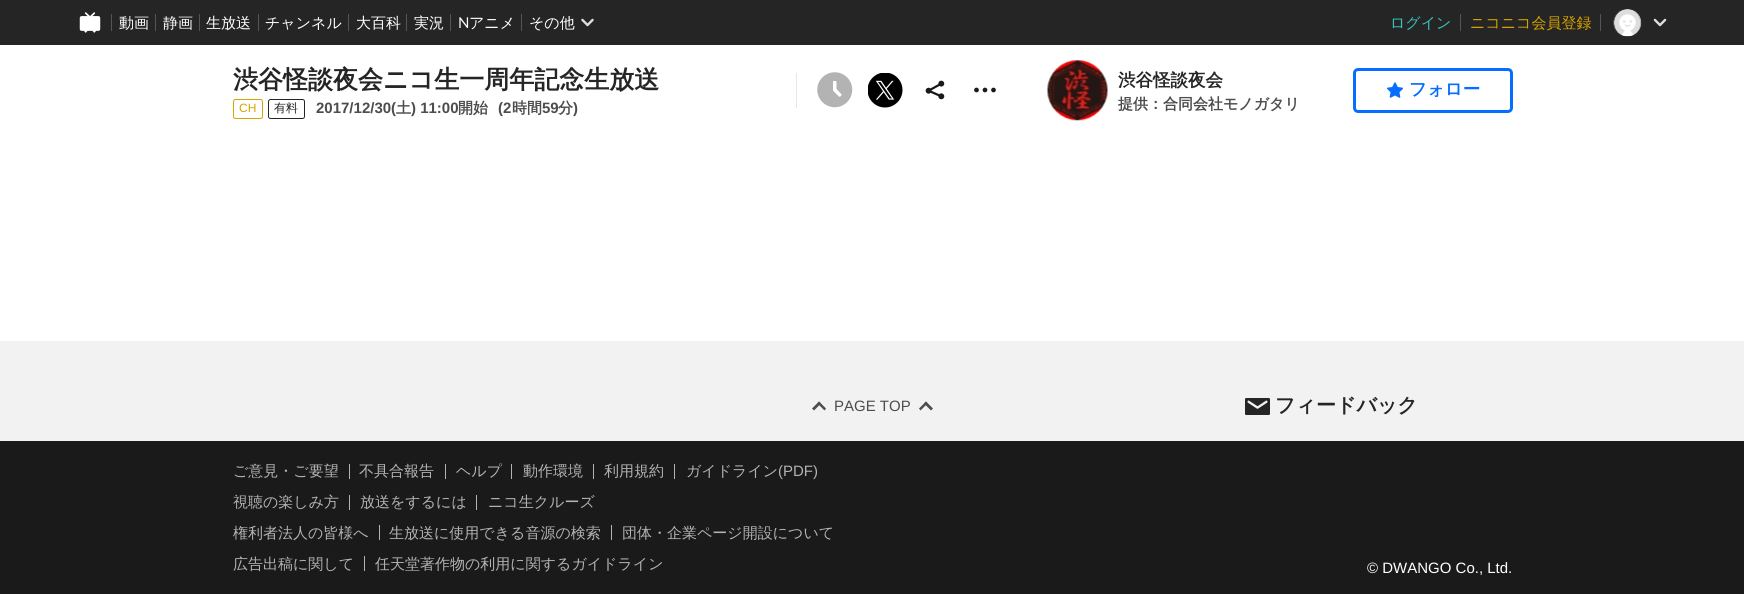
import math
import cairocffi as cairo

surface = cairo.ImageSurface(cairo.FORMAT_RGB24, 1744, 594)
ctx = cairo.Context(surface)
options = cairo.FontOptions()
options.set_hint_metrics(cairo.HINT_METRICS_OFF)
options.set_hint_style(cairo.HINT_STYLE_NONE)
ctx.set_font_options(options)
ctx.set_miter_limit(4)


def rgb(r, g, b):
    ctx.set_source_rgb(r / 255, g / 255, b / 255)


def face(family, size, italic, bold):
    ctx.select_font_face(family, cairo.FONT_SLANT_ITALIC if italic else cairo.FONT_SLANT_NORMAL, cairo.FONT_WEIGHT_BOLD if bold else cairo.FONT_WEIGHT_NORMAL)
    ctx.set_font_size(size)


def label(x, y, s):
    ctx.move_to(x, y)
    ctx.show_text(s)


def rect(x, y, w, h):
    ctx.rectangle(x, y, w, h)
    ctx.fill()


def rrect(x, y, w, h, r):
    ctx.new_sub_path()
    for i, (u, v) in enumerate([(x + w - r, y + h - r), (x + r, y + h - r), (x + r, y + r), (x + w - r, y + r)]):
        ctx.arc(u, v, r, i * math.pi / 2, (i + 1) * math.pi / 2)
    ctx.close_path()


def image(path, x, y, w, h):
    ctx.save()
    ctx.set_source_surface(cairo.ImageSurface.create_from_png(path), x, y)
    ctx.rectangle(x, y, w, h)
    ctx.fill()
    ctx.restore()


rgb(242, 242, 242)
ctx.paint()
rgb(37, 37, 37)
rect(0, 0, 1744, 45)
image('image0.png', 79, 12, 22, 21)
rgb(85, 85, 85)
rect(111, 14, 1, 17)
face('WenQuanYi Zen Hei Medium', 15, 0, 0)
rgb(255, 255, 255)
label(119, 28, '動画')
rgb(85, 85, 85)
rect(155, 14, 1, 17)
rgb(255, 255, 255)
label(163, 28, '静画')
rgb(85, 85, 85)
rect(199, 14, 1, 17)
rgb(255, 255, 255)
label(206, 28, '生放送')
rgb(85, 85, 85)
rect(258, 14, 1, 17)
rgb(255, 255, 255)
label(265, 28, 'チャンネル')
rgb(85, 85, 85)
rect(348, 14, 1, 17)
rgb(255, 255, 255)
label(356, 28, '大百科')
rgb(85, 85, 85)
rect(406, 14, 1, 17)
rgb(255, 255, 255)
label(414, 28, '実況')
rgb(85, 85, 85)
rect(450, 14, 1, 17)
face('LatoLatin', 15, 0, 0)
rgb(255, 255, 255)
label(458, 28, 'N')
face('WenQuanYi Zen Hei Medium', 15, 0, 0)
label(469, 28, 'アニメ')
rgb(85, 85, 85)
rect(521, 14, 1, 17)
rgb(255, 255, 255)
label(529, 28, 'その他')
image('image1.png', 581, 18, 13, 9)
rgb(57, 196, 193)
label(1390, 28, 'ログイン')
rgb(85, 85, 85)
rect(1460, 14, 1, 17)
rgb(217, 163, 0)
label(1470, 28, 'ニコニコ会員登録')
rgb(85, 85, 85)
rect(1600, 14, 1, 17)
image('image2.png', 1613, 9, 29, 28)
image('image3.png', 1653, 18, 14, 9)
rgb(255, 255, 255)
rect(0, 45, 1744, 296)
face('WenQuanYi Zen Hei', 25, 0, 1)
rgb(37, 37, 37)
label(233, 88, '渋谷怪談夜会ニコ生一周年記念生放送')
rrect(233.5, 99.5, 29, 19, 2)
rgb(217, 163, 0)
ctx.set_line_width(1)
ctx.stroke()
face('Liberation Sans', 12, 0, 0)
label(239, 112, 'CH')
rrect(268.5, 99.5, 36, 19, 2)
rgb(37, 37, 37)
ctx.stroke()
face('WenQuanYi Zen Hei Medium', 12, 0, 0)
label(274, 112, '有料')
face('Liberation Sans', 15, 0, 1)
rgb(77, 77, 77)
label(316, 113, '2017/12/30(')
face('WenQuanYi Zen Hei', 15, 0, 1)
label(396, 113, '土')
face('Liberation Sans', 15, 0, 1)
label(411, 113, ') 11:00')
face('WenQuanYi Zen Hei', 15, 0, 1)
label(458, 113, '開始')
face('Liberation Sans', 15, 0, 1)
label(498, 113, '(2')
face('WenQuanYi Zen Hei', 15, 0, 1)
label(512, 113, '時間')
face('Liberation Sans', 15, 0, 1)
label(542, 113, '59')
face('WenQuanYi Zen Hei', 15, 0, 1)
label(558, 113, '分')
face('Liberation Sans', 15, 0, 1)
label(573, 113, ')')
rgb(230, 230, 230)
rect(796, 73, 1, 35)
image('image4.png', 817, 72, 36, 36)
image('image5.png', 868, 73, 35, 35)
image('image6.png', 925, 80, 20, 20)
image('image7.png', 974, 87, 22, 6)
image('image8.png', 1047, 60, 61, 61)
face('WenQuanYi Zen Hei', 17.5, 0, 1)
rgb(37, 37, 37)
label(1118, 86, '渋谷怪談夜会')
ctx.save()
ctx.rectangle(1118, 96, 230, 19)
ctx.clip()
face('WenQuanYi Zen Hei', 15, 0, 1)
rgb(77, 77, 77)
label(1118, 109, '提供：合同会社モノガタリ')
ctx.restore()
rrect(1354.5, 69.5, 157, 42, 3.5)
rgb(5, 109, 255)
ctx.set_line_width(3)
ctx.stroke()
image('image9.png', 1386, 82, 17, 16)
label(1409, 95, 'フォロー')
rgb(77, 77, 77)
ctx.new_path()
ctx.move_to(819, 401.5)
ctx.line_to(826, 408.5)
ctx.line_to(824.5, 410.5)
ctx.line_to(817.5, 403.5)
ctx.close_path()
ctx.fill()
ctx.new_path()
ctx.move_to(819, 401.5)
ctx.line_to(821, 403.5)
ctx.line_to(814, 410.5)
ctx.line_to(812, 408.5)
ctx.close_path()
ctx.fill()
face('Liberation Sans', 15, 0, 0)
label(834, 411, 'PAGE TOP')
ctx.new_path()
ctx.move_to(926, 401.5)
ctx.line_to(933, 408.5)
ctx.line_to(931, 410.5)
ctx.line_to(924, 403.5)
ctx.close_path()
ctx.fill()
ctx.new_path()
ctx.move_to(926, 401.5)
ctx.line_to(927.5, 403.5)
ctx.line_to(920.5, 410.5)
ctx.line_to(919, 408.5)
ctx.close_path()
ctx.fill()
image('image10.png', 1245, 398, 25, 17)
face('WenQuanYi Zen Hei', 20, 0, 1)
rgb(37, 37, 37)
label(1275, 412, 'フィードバック')
rgb(26, 26, 26)
rect(0, 441, 1744, 153)
face('WenQuanYi Zen Hei Medium', 15, 0, 0)
rgb(179, 179, 179)
label(233, 476, 'ご意見・ご要望')
rect(349, 464, 1, 15)
label(359, 476, '不具合報告')
rect(445, 464, 1, 15)
label(456, 476, 'ヘルプ')
rect(511, 464, 1, 15)
label(523, 476, '動作環境')
rect(593, 464, 1, 15)
label(604, 476, '利用規約')
rect(674, 464, 1, 15)
label(686, 476, 'ガイドライン')
face('Liberation Sans', 15, 0, 0)
label(778, 476, '(PDF)')
face('WenQuanYi Zen Hei Medium', 15, 0, 0)
label(233, 507, '視聴の楽しみ方')
rect(349, 495, 1, 15)
label(360, 507, '放送をするには')
rect(476, 495, 1, 15)
label(488, 507, 'ニコ生クルーズ')
label(233, 538, '権利者法人の皆様へ')
rect(379, 525, 1, 15)
label(389, 538, '生放送に使用できる音源の検索')
rect(611, 525, 1, 15)
label(622, 538, '団体・企業ページ開設について')
label(233, 569, '広告出稿に関して')
rect(364, 556, 1, 15)
label(375, 569, '任天堂著作物の利用に関するガイドライン')
face('Liberation Sans', 15, 0, 0)
rgb(255, 255, 255)
label(1367, 573, '© DWANGO Co., Ltd.')
surface.write_to_png('render.png')
